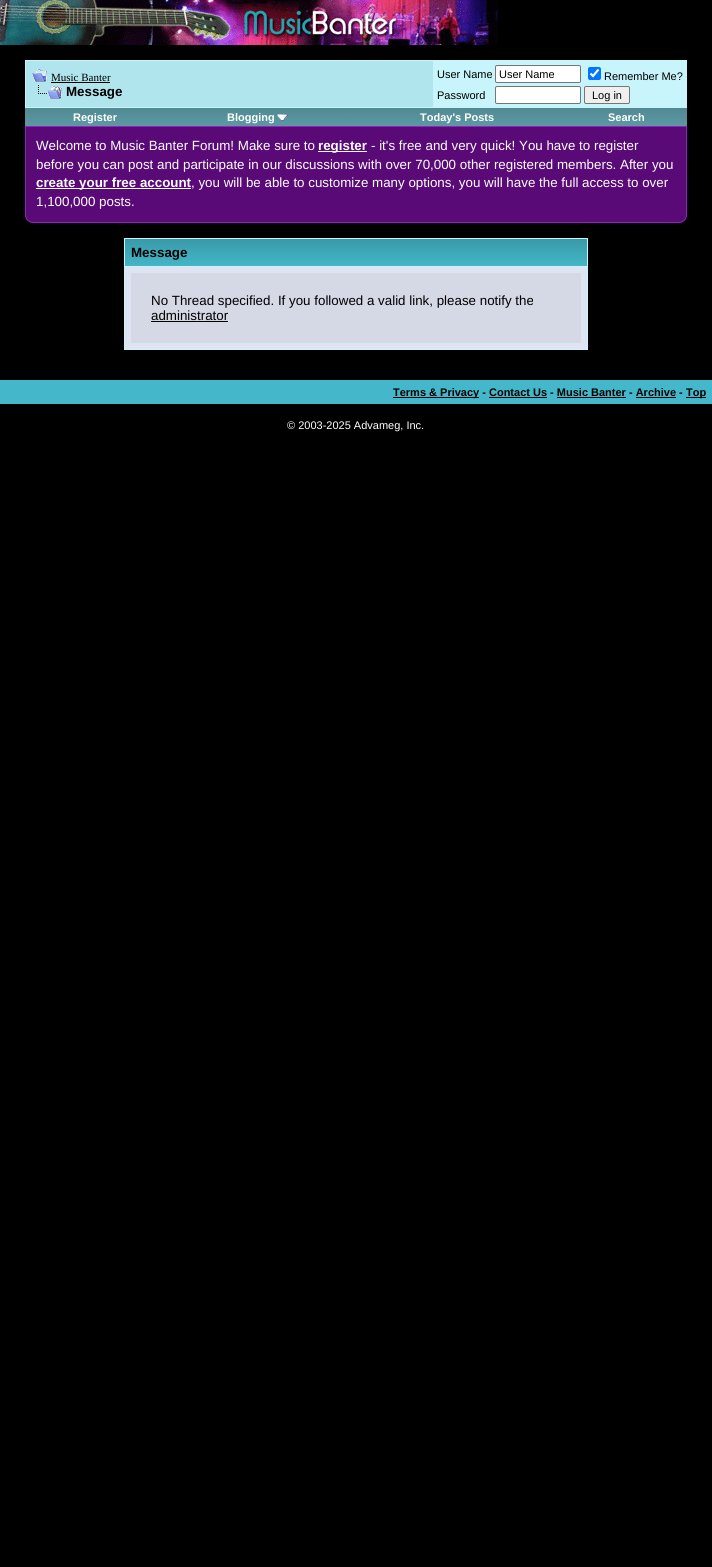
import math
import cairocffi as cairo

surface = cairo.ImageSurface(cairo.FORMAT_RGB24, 712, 1567)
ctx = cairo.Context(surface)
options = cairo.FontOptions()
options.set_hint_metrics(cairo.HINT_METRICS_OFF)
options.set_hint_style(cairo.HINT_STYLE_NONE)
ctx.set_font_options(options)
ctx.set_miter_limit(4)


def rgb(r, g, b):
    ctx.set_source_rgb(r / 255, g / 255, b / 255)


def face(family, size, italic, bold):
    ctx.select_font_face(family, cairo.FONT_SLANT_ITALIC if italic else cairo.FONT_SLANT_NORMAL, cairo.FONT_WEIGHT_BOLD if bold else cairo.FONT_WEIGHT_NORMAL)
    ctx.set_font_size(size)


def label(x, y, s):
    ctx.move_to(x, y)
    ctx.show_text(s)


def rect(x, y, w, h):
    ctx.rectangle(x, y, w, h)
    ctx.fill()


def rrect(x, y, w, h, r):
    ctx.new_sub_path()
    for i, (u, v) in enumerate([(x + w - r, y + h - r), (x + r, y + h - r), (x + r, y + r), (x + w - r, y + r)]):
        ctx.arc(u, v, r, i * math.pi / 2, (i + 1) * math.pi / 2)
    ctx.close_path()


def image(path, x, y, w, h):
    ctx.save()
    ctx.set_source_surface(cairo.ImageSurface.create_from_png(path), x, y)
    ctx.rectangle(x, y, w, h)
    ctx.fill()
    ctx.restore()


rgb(0, 0, 0)
ctx.paint()
image('image0.png', 0, 0, 498, 45)
rgb(200, 244, 251)
rect(25, 60, 662, 48)
rgb(176, 229, 238)
rect(26, 61, 407, 46)
image('image1.png', 32, 69, 15, 13)
face('Liberation Serif', 11, 0, 0)
rgb(0, 0, 0)
label(51, 81, 'Music Banter')
rect(51, 82, 59, 1)
image('image2.png', 38, 85, 24, 14)
face('Liberation Sans', 13.35, 0, 1)
label(66, 96, 'Message')
face('Liberation Sans', 11, 0, 0)
label(437, 78, 'User Name')
rgb(255, 255, 255)
rrect(495.5, 65.5, 85, 17, 1.5)
ctx.fill_preserve()
rgb(118, 118, 118)
ctx.set_line_width(1)
ctx.stroke()
rgb(0, 0, 0)
label(499, 78, 'User Name')
rgb(0, 117, 255)
rrect(588, 67, 13, 13, 2)
ctx.fill()
ctx.new_path()
ctx.move_to(590.5, 73.5)
ctx.line_to(593, 76)
ctx.line_to(598.5, 69.5)
rgb(255, 255, 255)
ctx.set_line_width(2.1)
ctx.stroke()
rgb(0, 0, 0)
label(604, 80, 'Remember Me?')
label(437, 99, 'Password')
rgb(255, 255, 255)
rrect(495.5, 86.5, 85, 17, 1.5)
ctx.fill_preserve()
rgb(118, 118, 118)
ctx.set_line_width(1)
ctx.stroke()
rgb(239, 239, 239)
rrect(584.5, 86.5, 45, 17, 1.5)
ctx.fill_preserve()
rgb(118, 118, 118)
ctx.stroke()
rgb(0, 0, 0)
label(592, 99, 'Log in')
image('image3.png', 25, 108, 140, 18)
face('Liberation Sans', 11, 0, 1)
rgb(255, 255, 255)
label(73, 121, 'Register')
image('image4.png', 165, 108, 185, 18)
label(227, 121, 'Blogging')
image('image5.png', 277, 114, 11, 7)
image('image6.png', 350, 108, 215, 18)
label(420, 121, 'Today\'s Posts')
image('image7.png', 565, 108, 122, 18)
label(608, 121, 'Search')
rgb(89, 10, 118)
ctx.new_path()
ctx.move_to(25.5, 126.5)
ctx.line_to(686.5, 126.5)
ctx.line_to(686.5, 215)
ctx.curve_to(686.5, 219, 683, 222.5, 679, 222.5)
ctx.line_to(33, 222.5)
ctx.curve_to(29, 222.5, 25.5, 219, 25.5, 215)
ctx.close_path()
ctx.fill_preserve()
rgb(148, 35, 190)
ctx.stroke()
face('Liberation Sans', 13.35, 0, 0)
rgb(255, 255, 255)
label(36, 150, 'Welcome to Music Banter Forum! Make sure to')
rect(318, 151, 49, 1)
face('Liberation Sans', 13.35, 0, 1)
label(318, 150, 'register')
face('Liberation Sans', 13.35, 0, 0)
label(371, 150, '- it\'s free and very quick! You have to register')
label(36, 169, 'before you can post and participate in our discussions with over 70,000 other registered members. After you')
rect(36, 188, 155, 1)
face('Liberation Sans', 13.35, 0, 1)
label(36, 187, 'create your free account')
face('Liberation Sans', 13.35, 0, 0)
label(191, 187, ', you will be able to customize many options, you will have the full access to over')
label(36, 206, '1,100,000 posts.')
rgb(200, 244, 251)
rect(124, 238, 464, 112)
image('image8.png', 125, 239, 462, 27)
face('Liberation Sans', 13.35, 0, 1)
rgb(0, 0, 0)
label(131, 257, 'Message')
rgb(224, 227, 241)
rect(125, 267, 462, 82)
rgb(213, 216, 229)
rect(131, 273, 450, 70)
face('Liberation Sans', 13.35, 0, 0)
rgb(0, 0, 0)
label(151, 305, 'No Thread specified. If you followed a valid link, please notify the')
label(151, 320, 'administrator')
rect(151, 321, 77, 1)
rgb(68, 184, 202)
rect(0, 380, 712, 24)
rgb(0, 0, 0)
rect(393, 397, 86, 1)
face('Liberation Sans', 11, 0, 1)
label(393, 396, 'Terms & Privacy - Contact Us - Music Banter - Archive -')
rect(489, 397, 58, 1)
rect(557, 397, 69, 1)
rect(636, 397, 40, 1)
rect(686, 397, 20, 1)
label(686, 396, 'Top')
face('Liberation Sans', 11, 0, 0)
rgb(255, 255, 255)
label(287, 429, '© 2003-2025 Advameg, Inc.')
surface.write_to_png('render.png')
